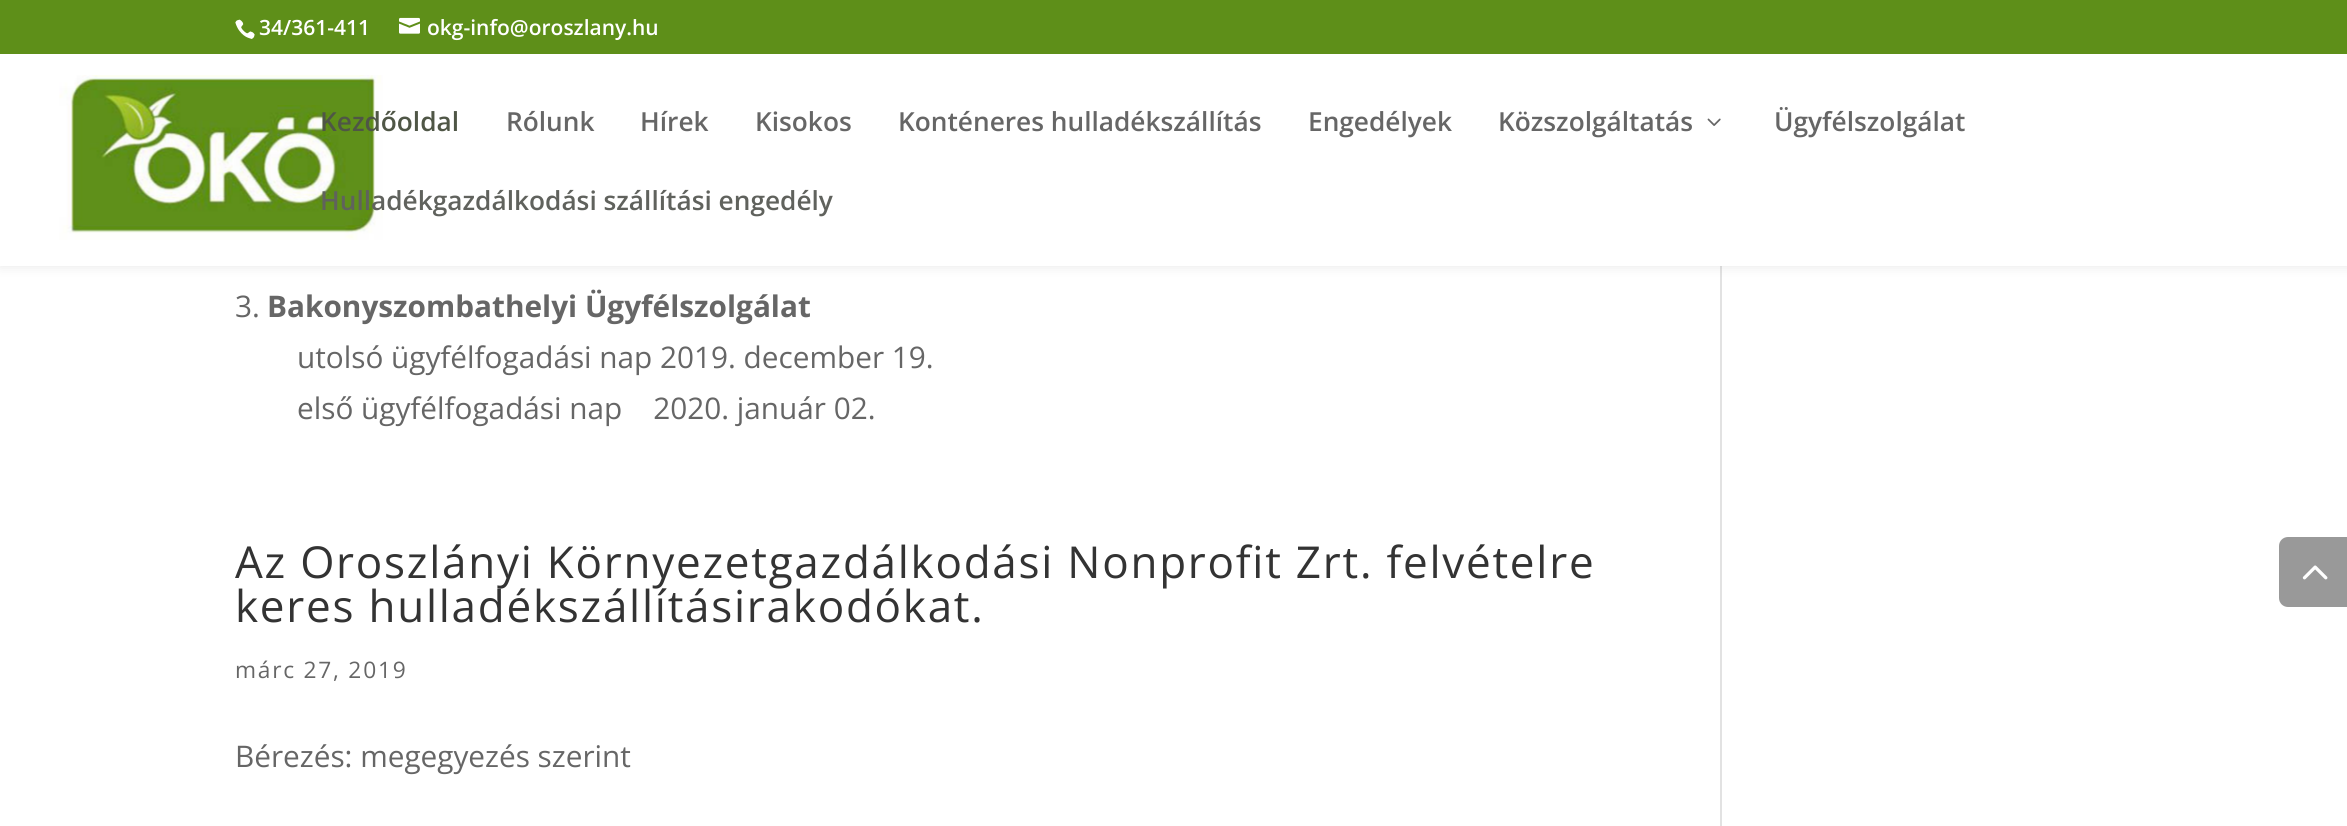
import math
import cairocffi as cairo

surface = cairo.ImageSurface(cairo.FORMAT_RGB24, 2347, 826)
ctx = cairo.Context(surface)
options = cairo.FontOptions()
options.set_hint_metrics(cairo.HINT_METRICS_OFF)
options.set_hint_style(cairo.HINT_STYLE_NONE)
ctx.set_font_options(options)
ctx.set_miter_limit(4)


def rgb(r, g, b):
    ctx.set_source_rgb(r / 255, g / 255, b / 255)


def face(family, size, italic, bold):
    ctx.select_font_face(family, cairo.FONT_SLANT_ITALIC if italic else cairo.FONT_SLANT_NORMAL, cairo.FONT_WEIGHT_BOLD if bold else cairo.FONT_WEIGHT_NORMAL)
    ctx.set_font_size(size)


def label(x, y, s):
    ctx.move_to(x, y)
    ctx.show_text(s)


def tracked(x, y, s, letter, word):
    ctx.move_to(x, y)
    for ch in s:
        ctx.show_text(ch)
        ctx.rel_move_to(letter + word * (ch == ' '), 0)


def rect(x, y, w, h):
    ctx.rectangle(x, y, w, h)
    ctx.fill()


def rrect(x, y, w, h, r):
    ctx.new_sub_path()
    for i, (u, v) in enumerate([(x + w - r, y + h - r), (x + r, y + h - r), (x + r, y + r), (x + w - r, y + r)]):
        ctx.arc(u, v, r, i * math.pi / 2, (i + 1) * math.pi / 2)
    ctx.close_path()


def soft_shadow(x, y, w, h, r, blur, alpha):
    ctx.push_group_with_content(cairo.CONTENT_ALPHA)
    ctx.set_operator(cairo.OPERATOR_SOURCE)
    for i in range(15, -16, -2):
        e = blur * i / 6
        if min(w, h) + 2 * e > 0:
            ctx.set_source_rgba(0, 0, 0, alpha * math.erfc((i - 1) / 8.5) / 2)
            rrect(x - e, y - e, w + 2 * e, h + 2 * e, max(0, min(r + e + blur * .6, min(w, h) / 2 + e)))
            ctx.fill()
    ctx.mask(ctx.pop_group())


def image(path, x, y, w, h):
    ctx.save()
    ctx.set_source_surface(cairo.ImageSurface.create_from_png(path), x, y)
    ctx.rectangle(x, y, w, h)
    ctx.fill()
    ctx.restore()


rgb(255, 255, 255)
ctx.paint()
rgb(226, 226, 226)
rect(1720, 266, 2, 560)
rgb(0, 0, 0)
soft_shadow(0, 54, 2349, 212, 0, 6, 0.1)
rgb(94, 143, 25)
rect(0, 0, 2347, 54)
image('image0.png', 235, 19, 20, 20)
face('Open Sans SemiBold', 21, 0, 0)
rgb(255, 255, 255)
label(259, 35, '34/361-411')
image('image1.png', 399, 17, 21, 17)
label(427, 35, 'okg-info@oroszlany.hu')
rect(0, 54, 2347, 212)
image('image2.png', 59, 75, 324, 165)
face('Open Sans SemiBold', 26.25, 0, 0)
rgb(79, 86, 70)
label(320, 131, 'Kezdőoldal')
rgb(102, 102, 102)
label(506, 131, 'Rólunk')
label(640, 131, 'Hírek')
label(755, 131, 'Kisokos')
label(898, 131, 'Konténeres hulladékszállítás')
label(1308, 131, 'Engedélyek')
label(1498, 131, 'Közszolgáltatás')
image('image3.png', 1707, 118, 14, 8)
label(1774, 131, 'Ügyfélszolgálat')
rgb(96, 98, 93)
label(320, 210, 'Hulladékgazdálkodási szállítási engedély')
face('Open Sans', 29.75, 0, 0)
rgb(102, 102, 102)
label(235, 317, '3.')
face('Open Sans', 29.75, 0, 1)
label(267, 317, 'Bakonyszombathelyi Ügyfélszolgálat')
face('Open Sans', 29.75, 0, 0)
label(297, 368, 'utolsó ügyfélfogadási nap 2019. december 19.')
label(297, 419, 'első ügyfélfogadási nap    2020. január 02.')
face('Open Sans', 44, 0, 0)
rgb(51, 51, 51)
tracked(235, 578, 'Az Oroszlányi Környezetgazdálkodási Nonprofit Zrt. felvételre', 1.75, 0)
tracked(235, 622, 'keres hulladékszállításirakodókat.', 1.75, 0)
face('Open Sans', 22.75, 0, 0)
rgb(102, 102, 102)
tracked(235, 678, 'márc 27, 2019', 1.75, 0)
face('Open Sans', 29.75, 0, 0)
label(235, 767, 'Bérezés: megegyezés szerint')
rgb(153, 153, 153)
ctx.new_path()
ctx.move_to(2288, 537)
ctx.line_to(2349, 537)
ctx.line_to(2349, 607)
ctx.line_to(2288, 607)
ctx.curve_to(2283, 607, 2279, 603, 2279, 598)
ctx.line_to(2279, 546)
ctx.curve_to(2279, 541, 2283, 537, 2288, 537)
ctx.close_path()
ctx.fill()
image('image4.png', 2302, 565, 26, 15)
surface.write_to_png('render.png')
